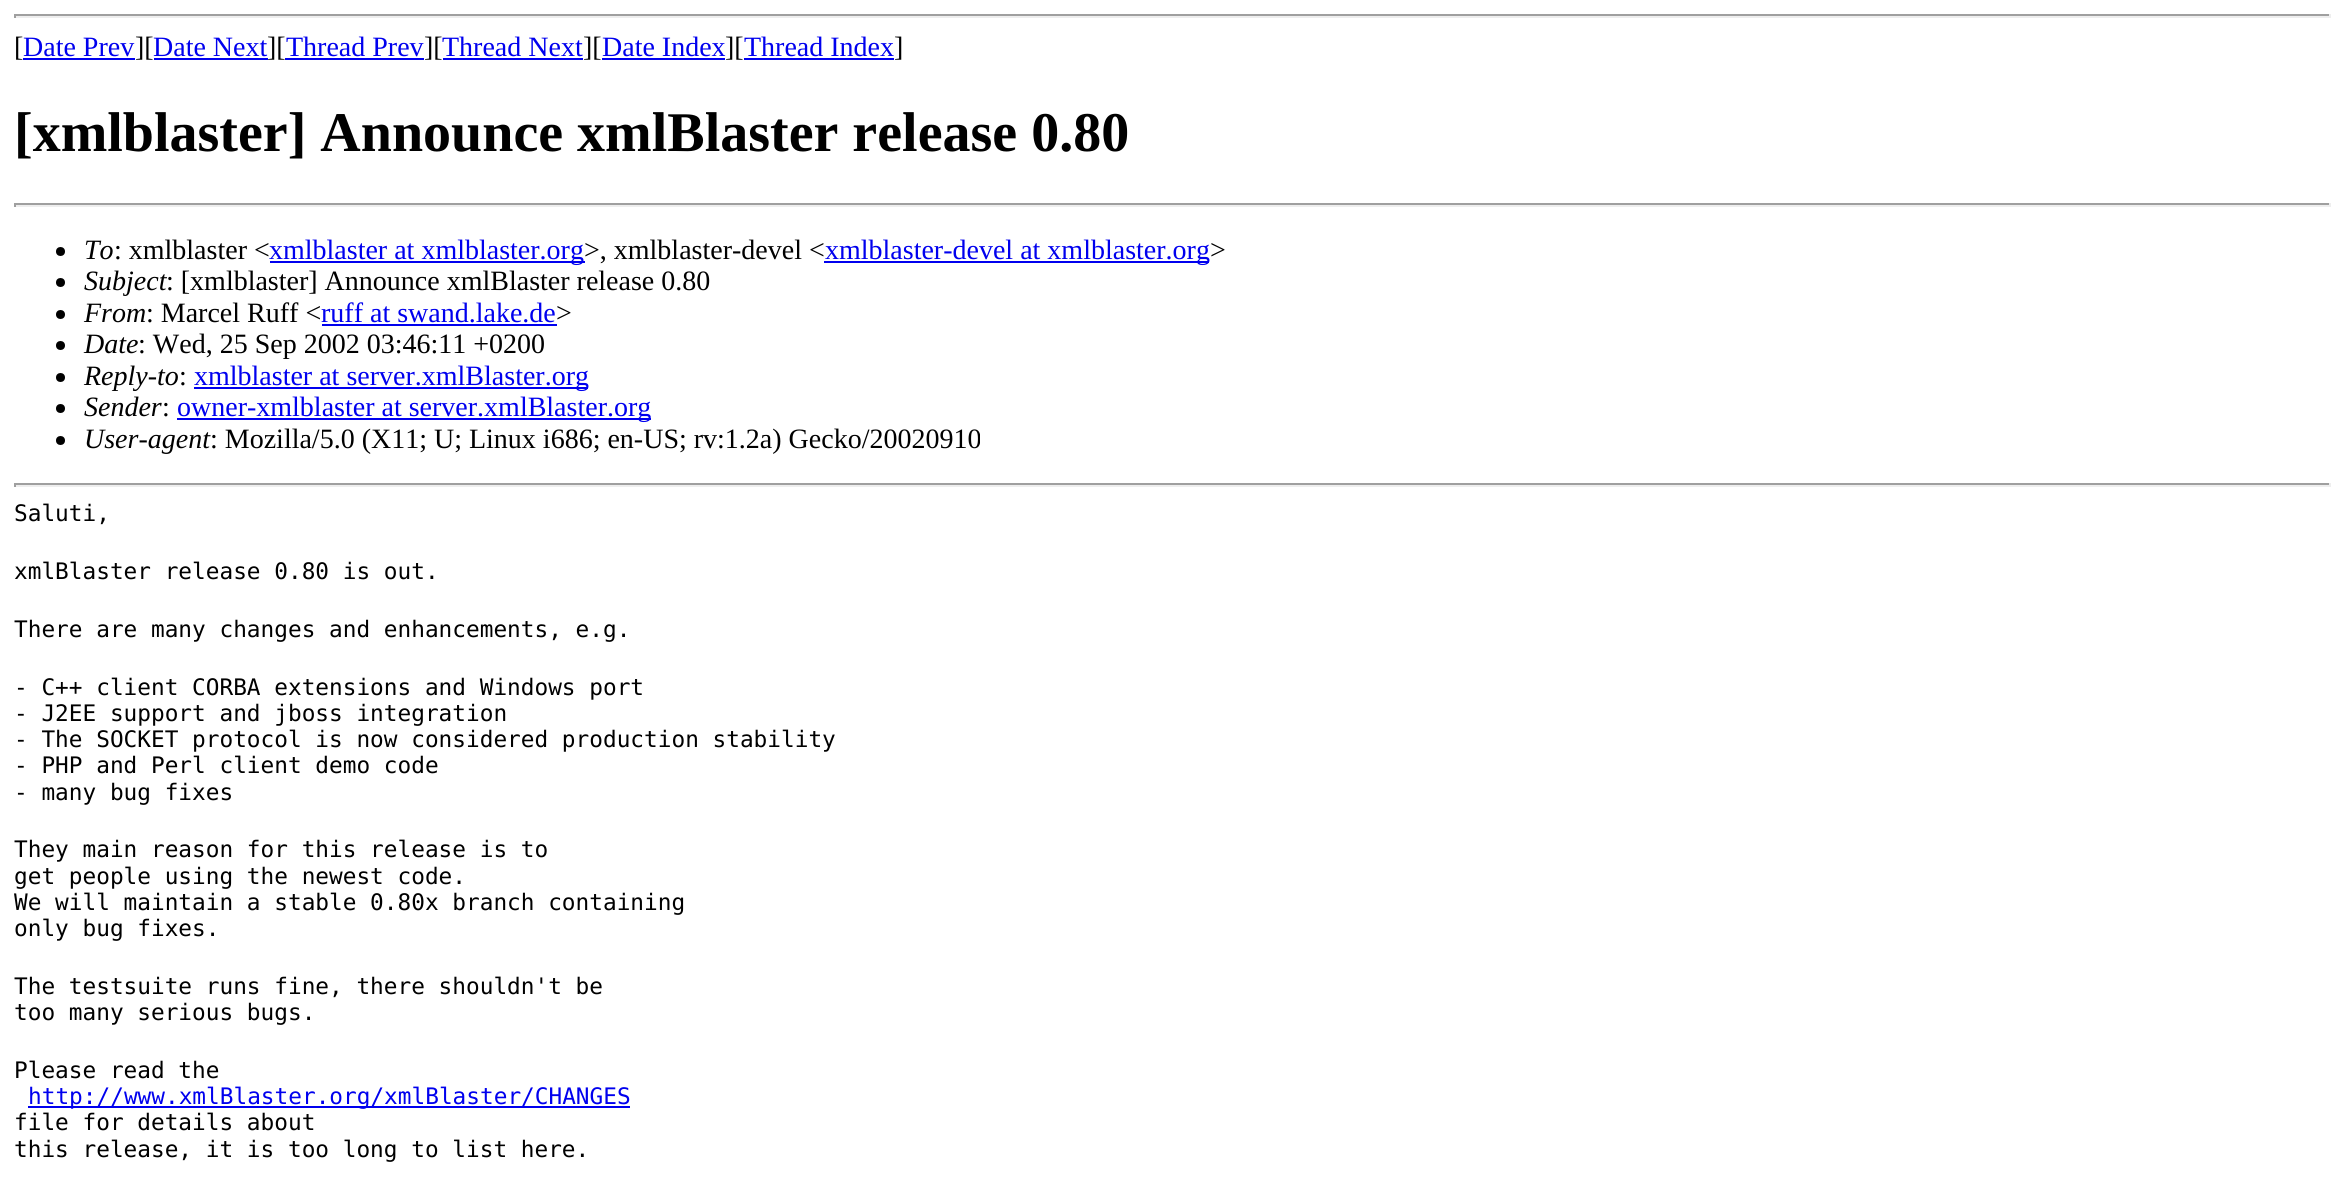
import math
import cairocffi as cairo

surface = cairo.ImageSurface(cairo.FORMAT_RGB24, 2345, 1193)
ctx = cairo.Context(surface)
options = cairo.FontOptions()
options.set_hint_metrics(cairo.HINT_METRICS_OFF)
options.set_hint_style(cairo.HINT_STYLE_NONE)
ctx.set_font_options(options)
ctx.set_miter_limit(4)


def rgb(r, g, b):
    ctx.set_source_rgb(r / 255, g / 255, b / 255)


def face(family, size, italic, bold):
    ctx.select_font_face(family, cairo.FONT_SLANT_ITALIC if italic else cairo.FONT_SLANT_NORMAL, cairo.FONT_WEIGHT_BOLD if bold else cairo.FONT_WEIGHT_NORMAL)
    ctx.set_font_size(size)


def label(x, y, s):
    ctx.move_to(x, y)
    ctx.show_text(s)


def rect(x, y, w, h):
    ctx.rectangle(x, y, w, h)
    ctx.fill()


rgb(255, 255, 255)
ctx.paint()
rgb(159, 159, 159)
rect(14, 14, 2317, 2)
rgb(238, 238, 238)
rect(2329, 14, 2, 4)
rect(14, 16, 2317, 2)
rgb(159, 159, 159)
rect(14, 14, 2, 4)
face('Liberation Serif', 28, 0, 0)
rgb(0, 0, 0)
label(14, 56, '[')
rgb(0, 0, 238)
label(23, 56, 'Date Prev')
rect(23, 58, 112, 2)
rgb(0, 0, 0)
label(135, 56, '][')
rgb(0, 0, 238)
label(153, 56, 'Date Next')
rect(154, 58, 114, 2)
rgb(0, 0, 0)
label(267, 56, '][')
rgb(0, 0, 238)
label(286, 56, 'Thread Prev')
rect(285, 58, 139, 2)
rgb(0, 0, 0)
label(424, 56, '][')
rgb(0, 0, 238)
label(442, 56, 'Thread Next')
rect(443, 58, 140, 2)
rgb(0, 0, 0)
label(583, 56, '][')
rgb(0, 0, 238)
label(602, 56, 'Date Index')
rect(602, 58, 123, 2)
rgb(0, 0, 0)
label(725, 56, '][')
rgb(0, 0, 238)
label(744, 56, 'Thread Index')
rect(744, 58, 150, 2)
rgb(0, 0, 0)
label(894, 56, ']')
face('Liberation Serif', 56, 0, 1)
label(14, 151, '[xmlblaster] Announce xmlBlaster release 0.80')
rgb(159, 159, 159)
rect(14, 203, 2317, 2)
rgb(238, 238, 238)
rect(2329, 203, 2, 4)
rect(14, 205, 2317, 2)
rgb(159, 159, 159)
rect(14, 203, 2, 4)
rgb(0, 0, 0)
ctx.new_path()
ctx.arc(60.5, 251.5, 4.5, 0, 2 * math.pi)
ctx.fill()
face('Liberation Serif', 28, 1, 0)
label(84, 259, 'To')
face('Liberation Serif', 28, 0, 0)
label(114, 259, ': xmlblaster <')
rgb(0, 0, 238)
rect(270, 261, 315, 2)
label(269, 259, 'xmlblaster at xmlblaster.org')
rgb(0, 0, 0)
label(584, 259, '>, xmlblaster-devel <')
rgb(0, 0, 238)
rect(824, 261, 385, 2)
label(825, 259, 'xmlblaster-devel at xmlblaster.org')
rgb(0, 0, 0)
label(1210, 259, '>')
ctx.new_path()
ctx.arc(60.5, 282.5, 4.5, 0, 2 * math.pi)
ctx.fill()
face('Liberation Serif', 28, 1, 0)
label(84, 290, 'Subject')
face('Liberation Serif', 28, 0, 0)
label(166, 290, ': [xmlblaster] Announce xmlBlaster release 0.80')
ctx.new_path()
ctx.arc(60.5, 314.5, 4.5, 0, 2 * math.pi)
ctx.fill()
face('Liberation Serif', 28, 1, 0)
label(84, 322, 'From')
face('Liberation Serif', 28, 0, 0)
label(146, 322, ': Marcel Ruff <')
rgb(0, 0, 238)
label(321, 322, 'ruff at swand.lake.de')
rect(322, 324, 235, 2)
rgb(0, 0, 0)
label(556, 322, '>')
ctx.new_path()
ctx.arc(60.5, 345.5, 4.5, 0, 2 * math.pi)
ctx.fill()
face('Liberation Serif', 28, 1, 0)
label(84, 353, 'Date')
face('Liberation Serif', 28, 0, 0)
label(138, 353, ': Wed, 25 Sep 2002 03:46:11 +0200')
ctx.new_path()
ctx.arc(60.5, 377.5, 4.5, 0, 2 * math.pi)
ctx.fill()
face('Liberation Serif', 28, 1, 0)
label(84, 385, 'Reply-to')
face('Liberation Serif', 28, 0, 0)
label(179, 385, ':')
rgb(0, 0, 238)
rect(194, 387, 394, 2)
label(194, 385, 'xmlblaster at server.xmlBlaster.org')
rgb(0, 0, 0)
ctx.new_path()
ctx.arc(60.5, 408.5, 4.5, 0, 2 * math.pi)
ctx.fill()
face('Liberation Serif', 28, 1, 0)
label(84, 416, 'Sender')
face('Liberation Serif', 28, 0, 0)
label(162, 416, ':')
rgb(0, 0, 238)
rect(177, 418, 474, 2)
label(177, 416, 'owner-xmlblaster at server.xmlBlaster.org')
rgb(0, 0, 0)
ctx.new_path()
ctx.arc(60.5, 440.5, 4.5, 0, 2 * math.pi)
ctx.fill()
face('Liberation Serif', 28, 1, 0)
label(84, 448, 'User-agent')
face('Liberation Serif', 28, 0, 0)
label(210, 448, ': Mozilla/5.0 (X11; U; Linux i686; en-US; rv:1.2a) Gecko/20020910')
rgb(159, 159, 159)
rect(14, 483, 2317, 2)
rgb(238, 238, 238)
rect(2329, 483, 2, 4)
rect(14, 485, 2317, 2)
rgb(159, 159, 159)
rect(14, 483, 2, 4)
face('DejaVu Sans Mono', 22.75, 0, 0)
rgb(0, 0, 0)
label(14, 521, 'Saluti,')
label(14, 579, 'xmlBlaster release 0.80 is out.')
label(14, 637, 'There are many changes and enhancements, e.g.')
label(14, 695, '- C++ client CORBA extensions and Windows port')
label(14, 721, '- J2EE support and jboss integration')
label(14, 747, '- The SOCKET protocol is now considered production stability')
label(14, 773, '- PHP and Perl client demo code')
label(14, 800, '- many bug fixes')
label(14, 857, 'They main reason for this release is to')
label(14, 884, 'get people using the newest code.')
label(14, 910, 'We will maintain a stable 0.80x branch containing')
label(14, 936, 'only bug fixes.')
label(14, 994, 'The testsuite runs fine, there shouldn\'t be')
label(14, 1020, 'too many serious bugs.')
label(14, 1078, 'Please read the')
rgb(0, 0, 238)
rect(28, 1106, 602, 2)
label(28, 1104, 'http://www.xmlBlaster.org/xmlBlaster/CHANGES')
rgb(0, 0, 0)
label(14, 1130, 'file for details about')
label(14, 1157, 'this release, it is too long to list here.')
surface.write_to_png('render.png')
